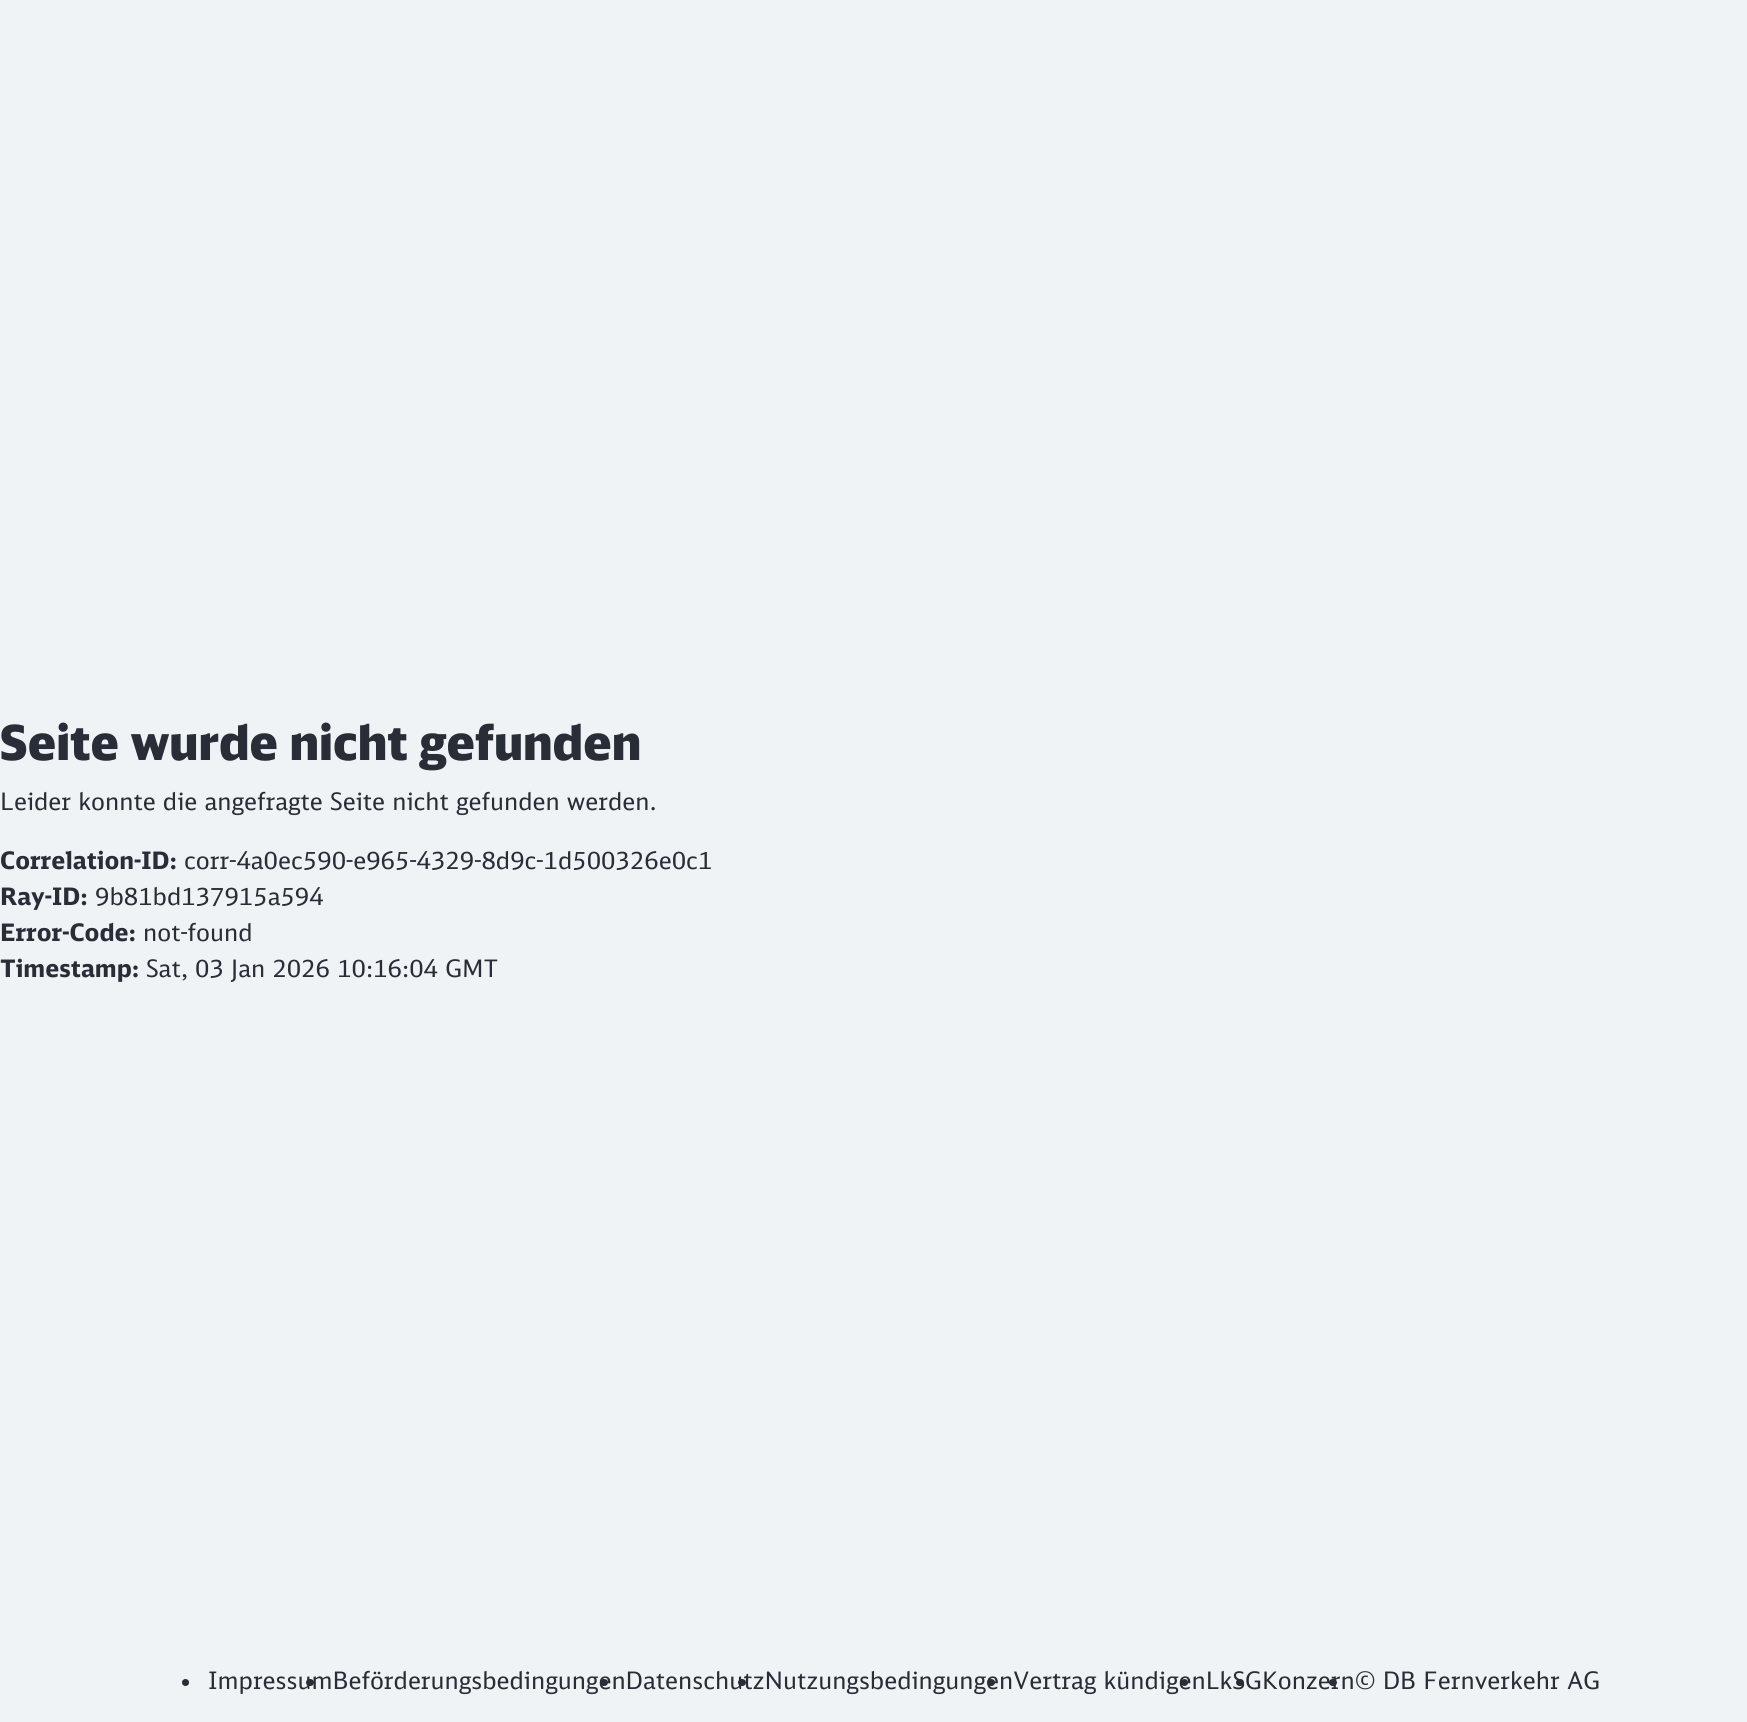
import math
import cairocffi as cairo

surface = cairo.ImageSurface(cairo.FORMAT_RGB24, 1747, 1722)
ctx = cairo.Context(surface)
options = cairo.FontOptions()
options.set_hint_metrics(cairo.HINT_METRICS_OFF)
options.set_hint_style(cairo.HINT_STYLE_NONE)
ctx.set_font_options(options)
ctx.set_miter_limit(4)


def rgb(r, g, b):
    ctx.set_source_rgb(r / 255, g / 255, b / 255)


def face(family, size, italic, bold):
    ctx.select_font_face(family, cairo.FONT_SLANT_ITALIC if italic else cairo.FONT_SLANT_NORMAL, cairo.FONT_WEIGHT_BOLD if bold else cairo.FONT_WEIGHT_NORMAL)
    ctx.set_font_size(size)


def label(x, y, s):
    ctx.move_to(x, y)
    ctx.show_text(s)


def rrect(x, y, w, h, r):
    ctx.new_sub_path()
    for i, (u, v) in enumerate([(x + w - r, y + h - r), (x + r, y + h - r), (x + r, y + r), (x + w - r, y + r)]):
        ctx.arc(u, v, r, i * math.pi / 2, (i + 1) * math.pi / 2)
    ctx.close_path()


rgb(240, 243, 245)
ctx.paint()
face('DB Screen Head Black', 48, 0, 0)
rgb(40, 45, 55)
label(0, 760, 'Seite wurde nicht gefunden')
face('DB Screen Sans', 24, 0, 0)
label(0, 810, 'Leider konnte die angefragte Seite nicht gefunden werden.')
face('DB Screen Sans', 24, 0, 1)
label(0, 869, 'Correlation-ID:')
face('DB Screen Sans', 24, 0, 0)
label(184, 869, 'corr-4a0ec590-e965-4329-8d9c-1d500326e0c1')
face('DB Screen Sans', 24, 0, 1)
label(0, 905, 'Ray-ID:')
face('DB Screen Sans', 24, 0, 0)
label(95, 905, '9b81bd137915a594')
face('DB Screen Sans', 24, 0, 1)
label(0, 941, 'Error-Code:')
face('DB Screen Sans', 24, 0, 0)
label(143, 941, 'not-found')
face('DB Screen Sans', 24, 0, 1)
label(0, 977, 'Timestamp:')
face('DB Screen Sans', 24, 0, 0)
label(146, 977, 'Sat, 03 Jan 2026 10:16:04 GMT')
ctx.new_path()
ctx.arc(185.5, 1682.5, 3.5, 0, 2 * math.pi)
ctx.fill()
label(208, 1689, 'ImpressumBeförderungsbedingungenDatenschutzNutzungsbedingungenVertrag kündigenLkSGKonzern© DB Fernverkehr AG')
rrect(306, 1679, 8, 7, 3.5)
ctx.fill()
rrect(600, 1679, 8, 7, 3.5)
ctx.fill()
rrect(738, 1679, 8, 7, 3.5)
ctx.fill()
rrect(987, 1679, 8, 7, 3.5)
ctx.fill()
ctx.arc(1184.5, 1682.5, 3.5, 0, 2 * math.pi)
ctx.fill()
rrect(1236, 1679, 8, 7, 3.5)
ctx.fill()
rrect(1329, 1679, 8, 7, 3.5)
ctx.fill()
surface.write_to_png('render.png')
